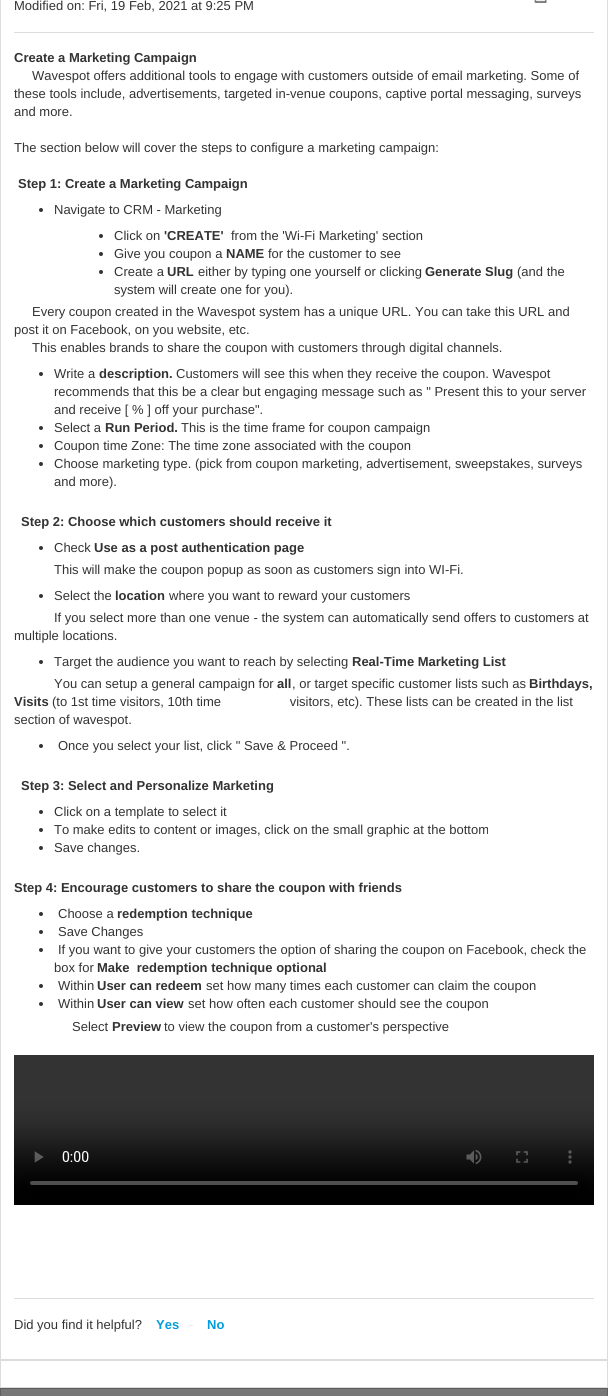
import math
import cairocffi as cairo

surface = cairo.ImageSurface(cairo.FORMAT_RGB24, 608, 1396)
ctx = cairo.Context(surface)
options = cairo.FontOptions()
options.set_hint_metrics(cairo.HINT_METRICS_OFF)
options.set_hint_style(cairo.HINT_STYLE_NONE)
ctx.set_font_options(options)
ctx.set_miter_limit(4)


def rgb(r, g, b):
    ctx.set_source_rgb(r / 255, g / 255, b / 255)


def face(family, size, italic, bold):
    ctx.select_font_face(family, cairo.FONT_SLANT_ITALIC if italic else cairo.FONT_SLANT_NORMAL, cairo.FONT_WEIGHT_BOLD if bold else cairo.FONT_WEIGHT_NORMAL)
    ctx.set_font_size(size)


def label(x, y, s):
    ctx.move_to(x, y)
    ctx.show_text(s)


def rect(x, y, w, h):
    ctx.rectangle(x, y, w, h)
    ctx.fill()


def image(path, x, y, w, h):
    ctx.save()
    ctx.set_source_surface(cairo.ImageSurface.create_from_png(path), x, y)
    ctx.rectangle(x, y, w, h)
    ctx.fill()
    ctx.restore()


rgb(119, 119, 119)
ctx.paint()
rgb(255, 255, 255)
ctx.rectangle(0.5, -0.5, 607, 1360)
ctx.fill_preserve()
rgb(220, 220, 220)
ctx.set_line_width(1)
ctx.stroke()
face('Liberation Sans', 13, 0, 0)
rgb(51, 51, 51)
label(14, 10, 'Modified on: Fri, 19 Feb, 2021 at 9:25 PM')
image('image0.png', 534, 0, 13, 3)
rgb(220, 220, 220)
rect(14, 32, 580, 1)
face('Liberation Sans', 13, 0, 1)
rgb(51, 51, 51)
label(14, 62, 'Create a Marketing Campaign')
face('Liberation Sans', 13, 0, 0)
label(32, 80, 'Wavespot offers additional tools to engage with customers outside of email marketing. Some of')
label(14, 98, 'these tools include, advertisements, targeted in-venue coupons, captive portal messaging, surveys')
label(14, 116, 'and more.')
label(14, 152, 'The section below will cover the steps to configure a marketing campaign:')
face('Liberation Sans', 13, 0, 1)
label(18, 188, 'Step 1: Create a Marketing Campaign')
ctx.new_path()
ctx.arc(41, 210, 2, 0, 2 * math.pi)
ctx.fill()
face('Liberation Sans', 13, 0, 0)
label(54, 214, 'Navigate to CRM - Marketing')
ctx.new_path()
ctx.arc(101, 236, 2, 0, 2 * math.pi)
ctx.fill()
label(114, 240, 'Click on')
face('Liberation Sans', 13, 0, 1)
label(164, 240, '\'CREATE\'')
face('Liberation Sans', 13, 0, 0)
label(231, 240, 'from the \'Wi-Fi Marketing\' section')
ctx.new_path()
ctx.arc(101, 254, 2, 0, 2 * math.pi)
ctx.fill()
label(114, 258, 'Give you coupon a')
face('Liberation Sans', 13, 0, 1)
label(226, 258, 'NAME')
face('Liberation Sans', 13, 0, 0)
label(268, 258, 'for the customer to see')
ctx.new_path()
ctx.arc(101, 272, 2, 0, 2 * math.pi)
ctx.fill()
label(114, 276, 'Create a')
face('Liberation Sans', 13, 0, 1)
label(167, 276, 'URL')
face('Liberation Sans', 13, 0, 0)
label(198, 276, 'either by typing one yourself or clicking')
face('Liberation Sans', 13, 0, 1)
label(425, 276, 'Generate Slug')
face('Liberation Sans', 13, 0, 0)
label(517, 276, '(and the')
label(114, 294, 'system will create one for you).')
label(32, 316, 'Every coupon created in the Wavespot system has a unique URL. You can take this URL and')
label(14, 334, 'post it on Facebook, on you website, etc.')
label(32, 352, 'This enables brands to share the coupon with customers through digital channels.')
ctx.new_path()
ctx.arc(41, 374, 2, 0, 2 * math.pi)
ctx.fill()
label(54, 378, 'Write a')
face('Liberation Sans', 13, 0, 1)
label(99, 378, 'description.')
face('Liberation Sans', 13, 0, 0)
label(176, 378, 'Customers will see this when they receive the coupon. Wavespot')
label(54, 396, 'recommends that this be a clear but engaging message such as " Present this to your server')
label(54, 414, 'and receive [ % ] off your purchase".')
ctx.new_path()
ctx.arc(41, 428, 2, 0, 2 * math.pi)
ctx.fill()
label(54, 432, 'Select a')
face('Liberation Sans', 13, 0, 1)
label(105, 432, 'Run Period.')
face('Liberation Sans', 13, 0, 0)
label(181, 432, 'This is the time frame for coupon campaign')
ctx.new_path()
ctx.arc(41, 446, 2, 0, 2 * math.pi)
ctx.fill()
label(54, 450, 'Coupon time Zone: The time zone associated with the coupon')
ctx.new_path()
ctx.arc(41, 464, 2, 0, 2 * math.pi)
ctx.fill()
label(54, 468, 'Choose marketing type. (pick from coupon marketing, advertisement, sweepstakes, surveys')
label(54, 486, 'and more).')
face('Liberation Sans', 13, 0, 1)
label(21, 526, 'Step 2: Choose which customers should receive it')
ctx.new_path()
ctx.arc(41, 548, 2, 0, 2 * math.pi)
ctx.fill()
face('Liberation Sans', 13, 0, 0)
label(54, 552, 'Check')
face('Liberation Sans', 13, 0, 1)
label(94, 552, 'Use as a post authentication page')
face('Liberation Sans', 13, 0, 0)
label(54, 574, 'This will make the coupon popup as soon as customers sign into WI-Fi.')
ctx.new_path()
ctx.arc(41, 596, 2, 0, 2 * math.pi)
ctx.fill()
label(54, 600, 'Select the')
face('Liberation Sans', 13, 0, 1)
label(115, 600, 'location')
face('Liberation Sans', 13, 0, 0)
label(169, 600, 'where you want to reward your customers')
label(54, 622, 'If you select more than one venue - the system can automatically send offers to customers at')
label(14, 640, 'multiple locations.')
ctx.new_path()
ctx.arc(41, 662, 2, 0, 2 * math.pi)
ctx.fill()
label(54, 666, 'Target the audience you want to reach by selecting')
face('Liberation Sans', 13, 0, 1)
label(352, 666, 'Real-Time Marketing List')
face('Liberation Sans', 13, 0, 0)
label(54, 688, 'You can setup a general campaign for')
face('Liberation Sans', 13, 0, 1)
label(277, 688, 'all')
face('Liberation Sans', 13, 0, 0)
label(292, 688, ', or target specific customer lists such as')
face('Liberation Sans', 13, 0, 1)
label(529, 688, 'Birthdays,')
label(14, 706, 'Visits')
face('Liberation Sans', 13, 0, 0)
label(52, 706, '(to 1st time visitors, 10th time                   visitors, etc). These lists can be created in the list')
label(14, 724, 'section of wavespot.')
ctx.new_path()
ctx.arc(41, 746, 2, 0, 2 * math.pi)
ctx.fill()
label(58, 750, 'Once you select your list, click " Save & Proceed ".')
face('Liberation Sans', 13, 0, 1)
label(21, 790, 'Step 3: Select and Personalize Marketing')
ctx.new_path()
ctx.arc(41, 812, 2, 0, 2 * math.pi)
ctx.fill()
face('Liberation Sans', 13, 0, 0)
label(54, 816, 'Click on a template to select it')
ctx.new_path()
ctx.arc(41, 830, 2, 0, 2 * math.pi)
ctx.fill()
label(54, 834, 'To make edits to content or images, click on the small graphic at the bottom')
ctx.new_path()
ctx.arc(41, 848, 2, 0, 2 * math.pi)
ctx.fill()
label(54, 852, 'Save changes.')
face('Liberation Sans', 13, 0, 1)
label(14, 892, 'Step 4: Encourage customers to share the coupon with friends')
ctx.new_path()
ctx.arc(41, 914, 2, 0, 2 * math.pi)
ctx.fill()
face('Liberation Sans', 13, 0, 0)
label(58, 918, 'Choose a')
face('Liberation Sans', 13, 0, 1)
label(117, 918, 'redemption technique')
ctx.new_path()
ctx.arc(41, 932, 2, 0, 2 * math.pi)
ctx.fill()
face('Liberation Sans', 13, 0, 0)
label(58, 936, 'Save Changes')
ctx.new_path()
ctx.arc(41, 950, 2, 0, 2 * math.pi)
ctx.fill()
label(58, 954, 'If you want to give your customers the option of sharing the coupon on Facebook, check the')
label(54, 972, 'box for')
face('Liberation Sans', 13, 0, 1)
label(97, 972, 'Make  redemption technique optional')
ctx.new_path()
ctx.arc(41, 986, 2, 0, 2 * math.pi)
ctx.fill()
face('Liberation Sans', 13, 0, 0)
label(58, 990, 'Within')
face('Liberation Sans', 13, 0, 1)
label(97, 990, 'User can redeem')
face('Liberation Sans', 13, 0, 0)
label(206, 990, 'set how many times each customer can claim the coupon')
ctx.new_path()
ctx.arc(41, 1004, 2, 0, 2 * math.pi)
ctx.fill()
label(58, 1008, 'Within')
face('Liberation Sans', 13, 0, 1)
label(97, 1008, 'User can view')
face('Liberation Sans', 13, 0, 0)
label(188, 1008, 'set how often each customer should see the coupon')
label(72, 1031, 'Select')
face('Liberation Sans', 13, 0, 1)
label(112, 1031, 'Preview')
face('Liberation Sans', 13, 0, 0)
label(164, 1031, 'to view the coupon from a customer\'s perspective')
image('image1.png', 14, 1055, 580, 150)
rgb(220, 220, 220)
rect(14, 1298, 580, 1)
rgb(51, 51, 51)
label(14, 1329, 'Did you find it helpful?')
face('Liberation Sans', 13, 0, 1)
rgb(4, 156, 219)
label(156, 1329, 'Yes')
face('Liberation Sans', 13, 0, 0)
rgb(229, 229, 229)
label(189, 1329, '-')
face('Liberation Sans', 13, 0, 1)
rgb(4, 156, 219)
label(207, 1329, 'No')
rgb(255, 255, 255)
ctx.rectangle(0.5, 1360.5, 607, 27)
ctx.fill_preserve()
rgb(220, 220, 220)
ctx.stroke()
ctx.rectangle(0.5, 1388.5, 607, 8)
rgb(94, 94, 94)
ctx.stroke()
surface.write_to_png('render.png')
